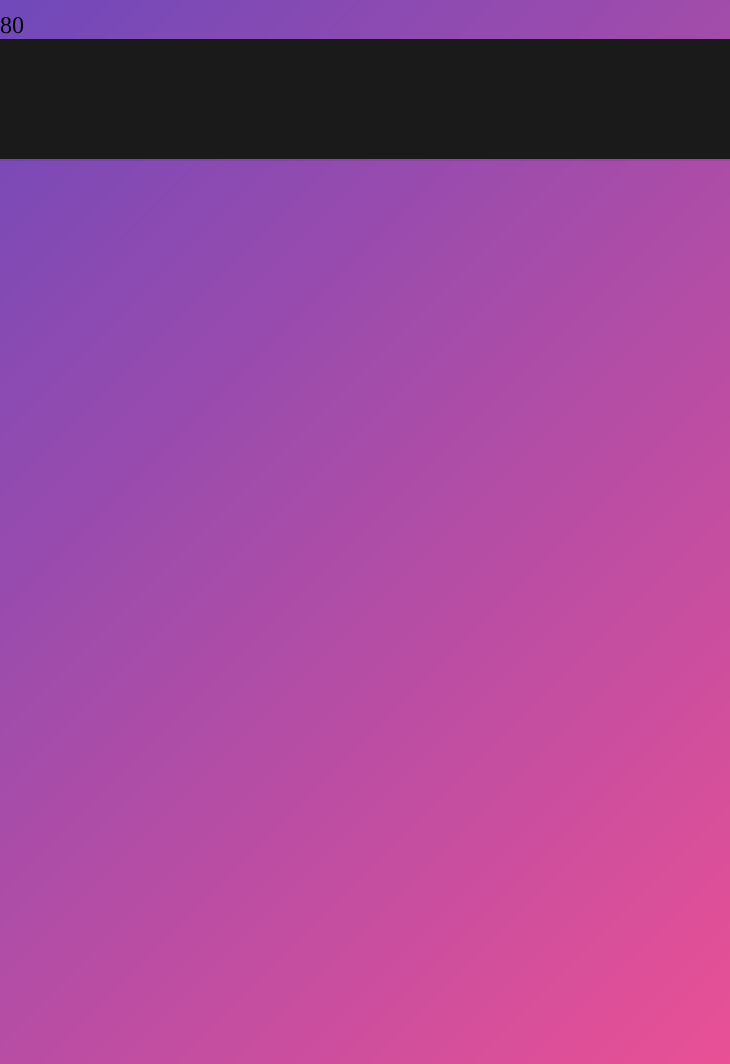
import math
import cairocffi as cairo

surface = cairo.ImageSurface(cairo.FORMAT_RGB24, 730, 1064)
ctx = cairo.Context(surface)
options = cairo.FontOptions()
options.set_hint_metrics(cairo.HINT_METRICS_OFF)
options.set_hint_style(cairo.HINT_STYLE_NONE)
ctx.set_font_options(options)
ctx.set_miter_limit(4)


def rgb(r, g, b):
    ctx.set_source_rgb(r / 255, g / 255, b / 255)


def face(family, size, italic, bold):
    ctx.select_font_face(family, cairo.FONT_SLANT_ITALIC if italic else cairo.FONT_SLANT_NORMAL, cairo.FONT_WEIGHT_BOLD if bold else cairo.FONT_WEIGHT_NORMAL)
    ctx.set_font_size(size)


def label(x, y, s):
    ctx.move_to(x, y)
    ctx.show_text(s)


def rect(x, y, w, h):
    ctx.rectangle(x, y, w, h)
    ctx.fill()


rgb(255, 255, 255)
ctx.paint()
gradient = cairo.LinearGradient(-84, 84, 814, 981)
gradient.add_color_stop_rgba(0, 0.439, 0.286, 0.729, 1)
gradient.add_color_stop_rgba(1, 0.914, 0.314, 0.584, 1)
ctx.set_source(gradient)
rect(0, 0, 730, 1064)
face('Liberation Serif', 24, 0, 0)
rgb(0, 0, 0)
label(0, 33, '80')
ctx.set_source_rgba(0, 0, 0, 0.08)
ctx.new_path()
ctx.move_to(0, 159)
ctx.line_to(0, 161)
ctx.line_to(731, 161)
ctx.line_to(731, 41)
ctx.line_to(730, 41)
ctx.line_to(730, 159)
ctx.close_path()
ctx.fill()
rgb(26, 26, 26)
rect(0, 39, 730, 120)
surface.write_to_png('render.png')
